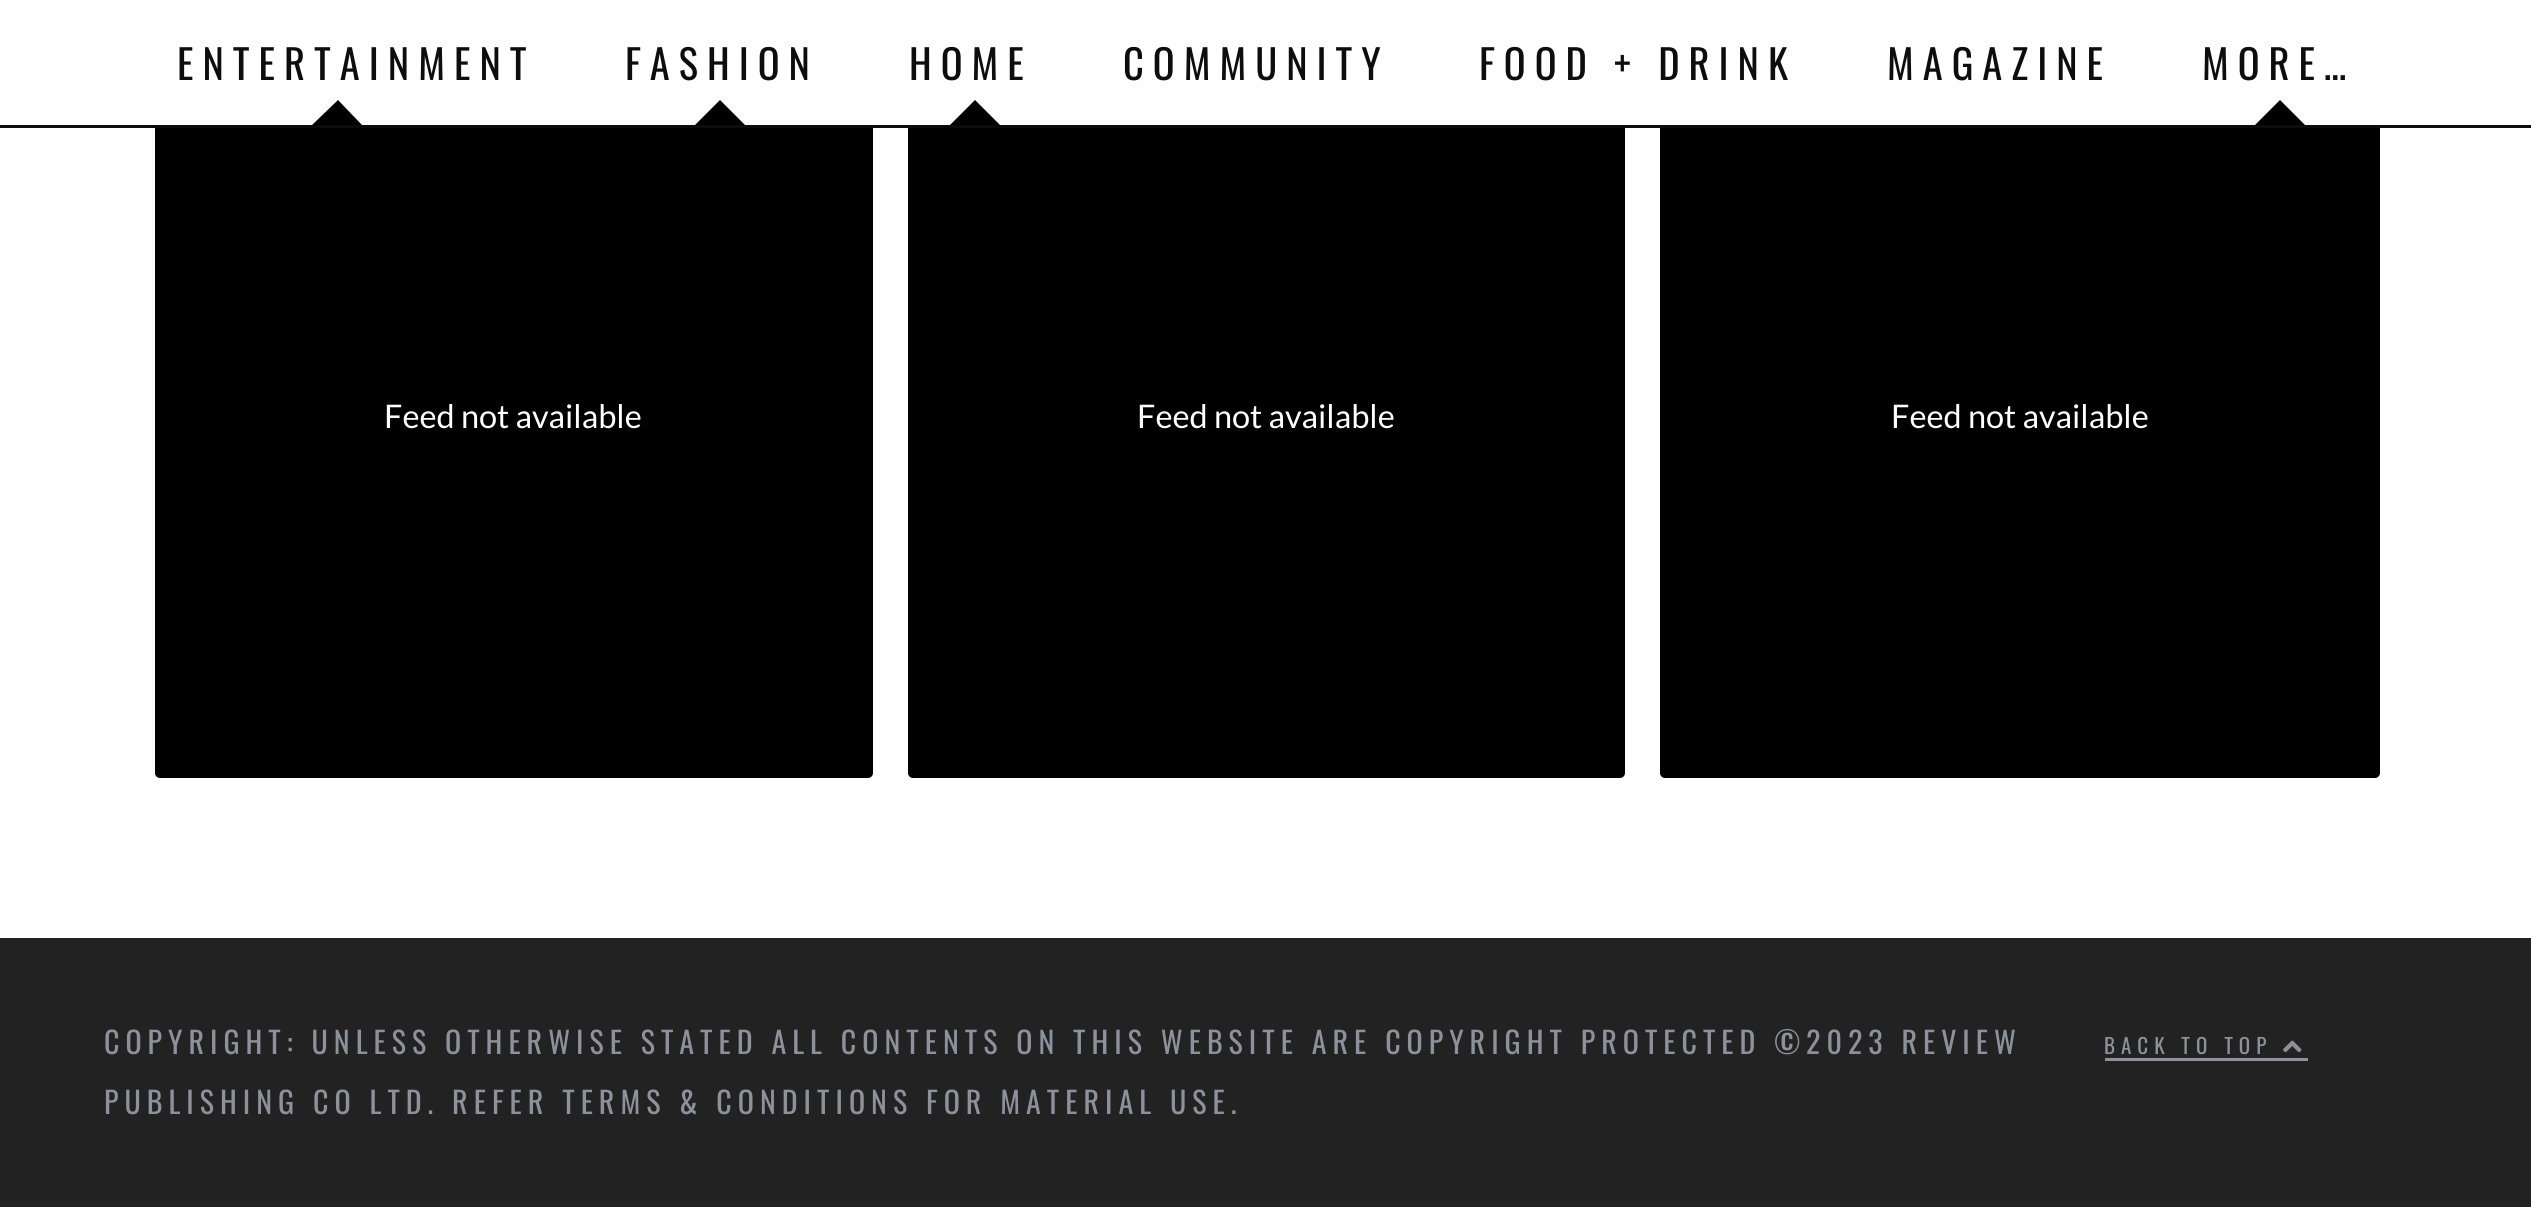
import math
import cairocffi as cairo

surface = cairo.ImageSurface(cairo.FORMAT_RGB24, 2531, 1207)
ctx = cairo.Context(surface)
options = cairo.FontOptions()
options.set_hint_metrics(cairo.HINT_METRICS_OFF)
options.set_hint_style(cairo.HINT_STYLE_NONE)
ctx.set_font_options(options)
ctx.set_miter_limit(4)


def rgb(r, g, b):
    ctx.set_source_rgb(r / 255, g / 255, b / 255)


def face(family, size, italic, bold):
    ctx.select_font_face(family, cairo.FONT_SLANT_ITALIC if italic else cairo.FONT_SLANT_NORMAL, cairo.FONT_WEIGHT_BOLD if bold else cairo.FONT_WEIGHT_NORMAL)
    ctx.set_font_size(size)


def label(x, y, s):
    ctx.move_to(x, y)
    ctx.show_text(s)


def tracked(x, y, s, letter, word):
    ctx.move_to(x, y)
    for ch in s:
        ctx.show_text(ch)
        ctx.rel_move_to(letter + word * (ch == ' '), 0)


def rect(x, y, w, h):
    ctx.rectangle(x, y, w, h)
    ctx.fill()


def rrect(x, y, w, h, r):
    ctx.new_sub_path()
    for i, (u, v) in enumerate([(x + w - r, y + h - r), (x + r, y + h - r), (x + r, y + r), (x + w - r, y + r)]):
        ctx.arc(u, v, r, i * math.pi / 2, (i + 1) * math.pi / 2)
    ctx.close_path()


def image(path, x, y, w, h):
    ctx.save()
    ctx.set_source_surface(cairo.ImageSurface.create_from_png(path), x, y)
    ctx.rectangle(x, y, w, h)
    ctx.fill()
    ctx.restore()


rgb(255, 255, 255)
ctx.paint()
rgb(0, 0, 0)
rrect(155, -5, 718, 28, 5)
ctx.fill()
rrect(908, -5, 717, 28, 5)
ctx.fill()
rrect(1660, -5, 720, 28, 5)
ctx.fill()
rrect(155, 58, 718, 720, 5)
ctx.fill()
rrect(908, 58, 717, 720, 5)
ctx.fill()
rrect(1660, 58, 720, 720, 5)
ctx.fill()
ctx.set_source_rgba(1, 1, 1, 0.95)
rect(155, 0, 2225, 128)
ctx.set_source_rgba(0, 0, 0, 0.95)
rect(0, 125, 2531, 3)
ctx.set_source_rgba(1, 1, 1, 0.95)
rect(155, 0, 2225, 125)
face('Oswald', 40.5, 0, 0)
rgb(13, 13, 13)
tracked(177, 80, 'ENTERTAINMENT', 9, 0)
rgb(0, 0, 0)
ctx.new_path()
ctx.move_to(362, 125)
ctx.line_to(312, 125)
ctx.line_to(338, 100)
ctx.close_path()
ctx.fill()
rgb(13, 13, 13)
tracked(625, 80, 'FASHION', 9, 0)
rgb(0, 0, 0)
ctx.new_path()
ctx.move_to(745, 125)
ctx.line_to(695, 125)
ctx.line_to(720, 100)
ctx.close_path()
ctx.fill()
rgb(13, 13, 13)
tracked(909, 80, 'HOME', 9, 0)
rgb(0, 0, 0)
ctx.new_path()
ctx.move_to(1000, 125)
ctx.line_to(950, 125)
ctx.line_to(975, 100)
ctx.close_path()
ctx.fill()
rgb(13, 13, 13)
tracked(1123, 80, 'COMMUNITY', 9, 0)
tracked(1479, 80, 'FOOD + DRINK', 9, 0)
tracked(1887, 80, 'MAGAZINE', 9, 0)
tracked(2202, 80, 'MORE…', 9, 0)
rgb(0, 0, 0)
ctx.new_path()
ctx.move_to(2305, 125)
ctx.line_to(2255, 125)
ctx.line_to(2280, 100)
ctx.close_path()
ctx.fill()
face('Lato', 32.5, 0, 0)
rgb(255, 255, 255)
label(384, 428, 'Feed not available')
label(1137, 428, 'Feed not available')
label(1891, 428, 'Feed not available')
rgb(34, 34, 34)
rect(0, 938, 2531, 269)
face('Oswald', 30, 0, 0)
rgb(140, 145, 155)
tracked(104, 1054, 'COPYRIGHT: UNLESS OTHERWISE STATED ALL CONTENTS ON THIS WEBSITE ARE COPYRIGHT PROTECTED ©2023 REVIEW', 6, 0)
tracked(104, 1114, 'PUBLISHING CO LTD. REFER TERMS & CONDITIONS FOR MATERIAL USE.', 6, 0)
face('Oswald', 21, 0, 0)
tracked(2104, 1054, 'BACK TO TOP', 6, 0)
rect(2105, 1058, 203, 3)
image('image0.png', 2283, 1040, 19, 13)
surface.write_to_png('render.png')
